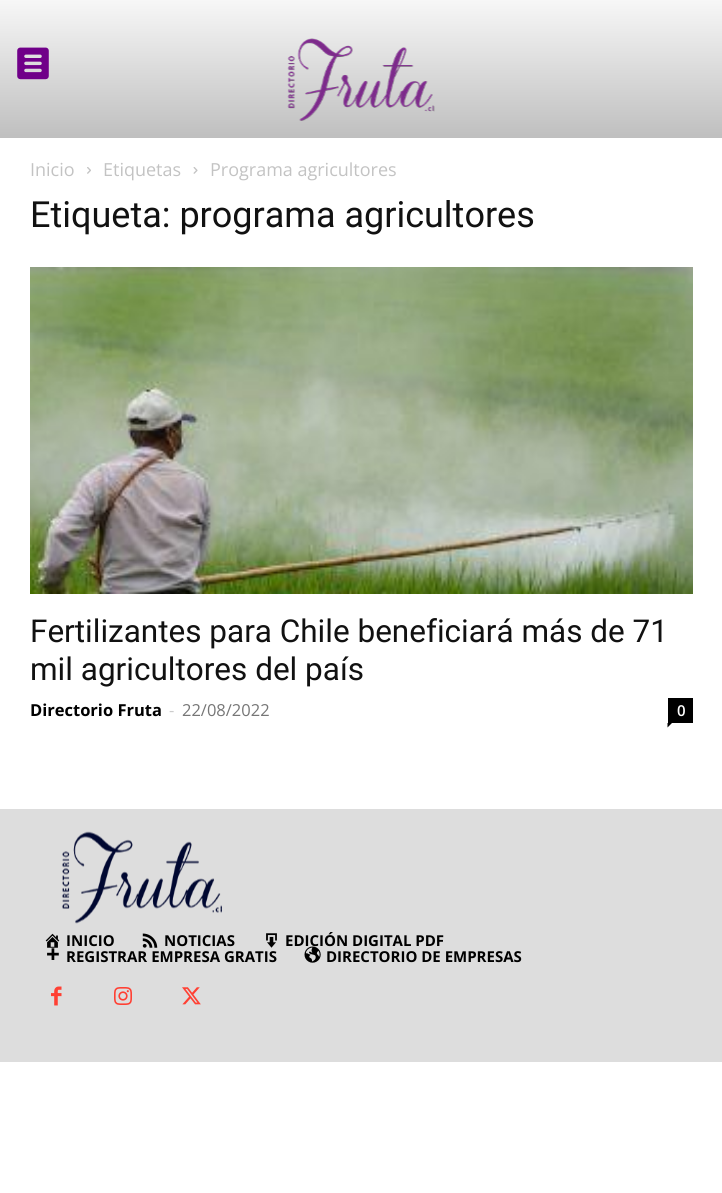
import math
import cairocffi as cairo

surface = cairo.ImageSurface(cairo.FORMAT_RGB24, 722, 1193)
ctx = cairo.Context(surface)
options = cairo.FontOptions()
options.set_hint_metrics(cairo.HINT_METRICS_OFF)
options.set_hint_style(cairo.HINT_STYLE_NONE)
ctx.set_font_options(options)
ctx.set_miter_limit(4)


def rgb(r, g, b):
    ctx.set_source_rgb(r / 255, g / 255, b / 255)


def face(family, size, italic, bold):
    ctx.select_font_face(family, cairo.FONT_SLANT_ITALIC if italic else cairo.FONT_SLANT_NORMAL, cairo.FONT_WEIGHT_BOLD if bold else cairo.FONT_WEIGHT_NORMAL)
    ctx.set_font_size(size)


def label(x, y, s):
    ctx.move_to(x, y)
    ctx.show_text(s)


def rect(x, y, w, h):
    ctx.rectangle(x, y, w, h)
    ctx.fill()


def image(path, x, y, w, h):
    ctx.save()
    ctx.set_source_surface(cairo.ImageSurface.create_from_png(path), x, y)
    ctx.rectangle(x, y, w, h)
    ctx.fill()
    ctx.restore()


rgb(255, 255, 255)
ctx.paint()
gradient = cairo.LinearGradient(362, 0, 362, 138)
gradient.add_color_stop_rgba(0, 0.969, 0.969, 0.969, 1)
gradient.add_color_stop_rgba(1, 0.749, 0.749, 0.749, 1)
ctx.set_source(gradient)
rect(0, 0, 722, 138)
image('image0.png', 17, 47, 32, 33)
image('image1.png', 287, 38, 148, 83)
face('Open Sans', 18, 0, 0)
rgb(195, 195, 195)
label(30, 176, 'Inicio')
image('image2.png', 87, 167, 4, 7)
label(103, 176, 'Etiquetas')
image('image3.png', 193, 167, 5, 7)
label(210, 176, 'Programa agricultores')
face('Roboto', 36, 0, 0)
rgb(17, 17, 17)
label(30, 227, 'Etiqueta: programa agricultores')
image('image4.png', 30, 267, 663, 327)
face('Roboto', 31.5, 0, 0)
label(30, 642, 'Fertilizantes para Chile beneficiará más de 71')
label(30, 680, 'mil agricultores del país')
face('Open Sans', 16.5, 0, 1)
rgb(0, 0, 0)
label(30, 716, 'Directorio Fruta')
face('Open Sans', 16.5, 0, 0)
rgb(204, 204, 204)
label(169, 716, '-')
rgb(118, 118, 118)
label(182, 716, '22/08/2022')
rgb(0, 0, 0)
rect(668, 698, 25, 25)
face('Open Sans SemiBold', 15, 0, 0)
rgb(255, 255, 255)
label(677, 716, '0')
rgb(0, 0, 0)
ctx.new_path()
ctx.move_to(667.5, 723)
ctx.line_to(672, 723)
ctx.line_to(667.5, 727.5)
ctx.close_path()
ctx.fill()
rgb(221, 221, 221)
rect(0, 809, 722, 253)
image('image5.png', 62, 831, 160, 93)
image('image6.png', 45, 933, 15, 15)
face('Open Sans', 15, 0, 1)
rgb(0, 0, 0)
label(66, 946, 'INICIO')
image('image7.png', 142, 933, 16, 15)
label(164, 946, 'NOTICIAS')
image('image8.png', 266, 933, 11, 15)
label(285, 946, 'EDICIÓN DIGITAL PDF')
image('image9.png', 47, 948, 12, 12)
label(66, 962, 'REGISTRAR EMPRESA GRATIS')
image('image10.png', 304, 946, 17, 17)
label(326, 962, 'DIRECTORIO DE EMPRESAS')
image('image11.png', 51, 986, 11, 20)
image('image12.png', 114, 987, 18, 18)
image('image13.png', 182, 987, 19, 18)
surface.write_to_png('render.png')
